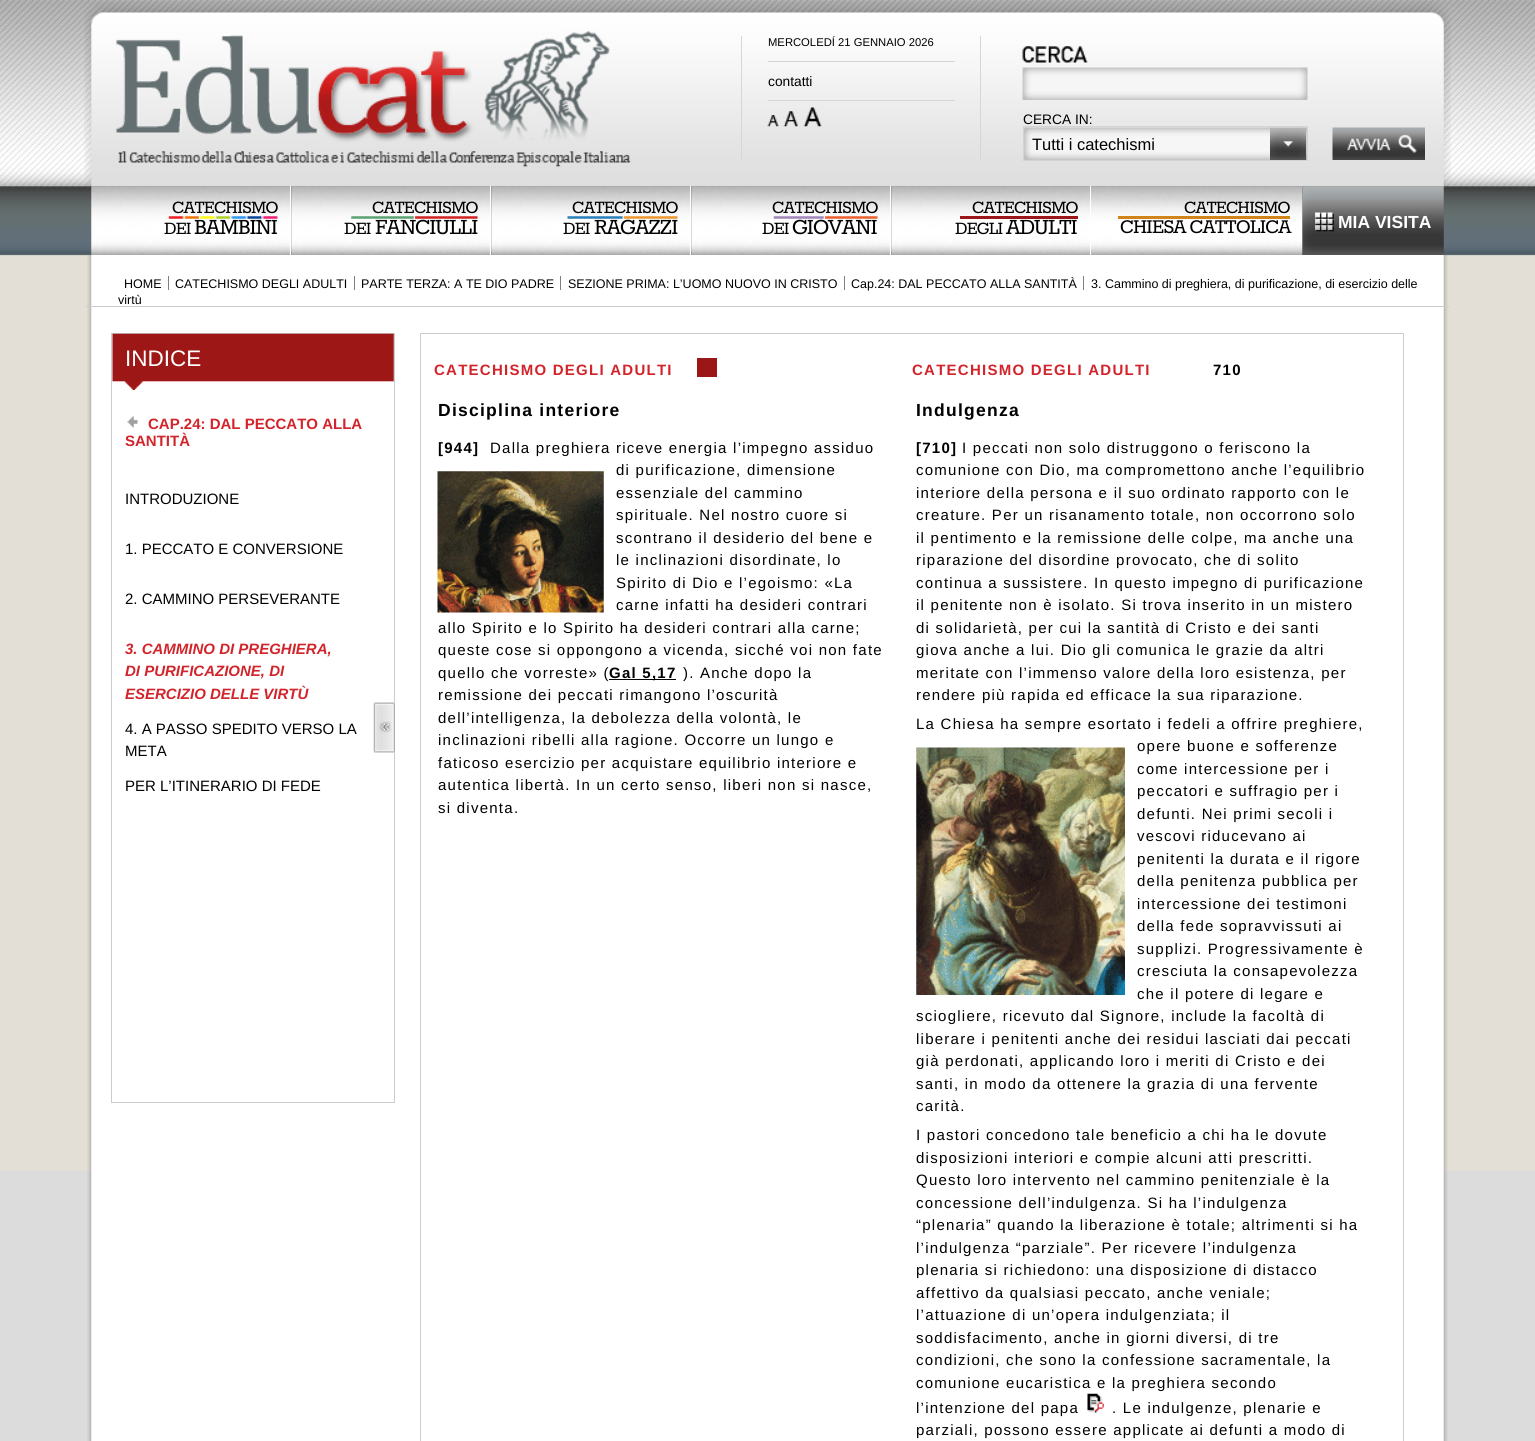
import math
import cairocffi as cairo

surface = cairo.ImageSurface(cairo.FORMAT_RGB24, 1535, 1441)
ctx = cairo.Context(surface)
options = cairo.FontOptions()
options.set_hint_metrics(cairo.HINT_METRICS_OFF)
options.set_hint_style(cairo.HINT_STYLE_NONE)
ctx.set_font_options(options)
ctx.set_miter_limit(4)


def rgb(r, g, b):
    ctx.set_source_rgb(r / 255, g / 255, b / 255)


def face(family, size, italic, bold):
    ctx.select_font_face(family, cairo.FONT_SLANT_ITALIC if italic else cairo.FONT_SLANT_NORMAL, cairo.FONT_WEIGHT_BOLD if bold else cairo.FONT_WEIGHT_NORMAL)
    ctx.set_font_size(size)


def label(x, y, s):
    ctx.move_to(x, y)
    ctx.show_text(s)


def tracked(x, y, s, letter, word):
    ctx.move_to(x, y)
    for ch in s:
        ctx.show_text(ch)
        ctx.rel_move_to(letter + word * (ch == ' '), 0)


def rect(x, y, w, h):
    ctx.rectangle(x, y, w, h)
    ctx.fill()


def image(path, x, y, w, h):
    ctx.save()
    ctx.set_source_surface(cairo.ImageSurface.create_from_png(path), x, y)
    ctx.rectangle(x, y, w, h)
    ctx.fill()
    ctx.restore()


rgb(220, 220, 220)
ctx.paint()
image('image0.png', 0, 0, 1535, 1171)
image('image1.png', 84, 1, 1367, 186)
rgb(214, 214, 214)
rect(980, 36, 1, 123)
rect(741, 36, 1, 123)
face('Liberation Sans', 11.25, 0, 0)
rgb(0, 0, 0)
label(768, 46, 'MERCOLEDÍ 21 GENNAIO 2026')
rgb(214, 214, 214)
rect(768, 61, 187, 1)
rect(768, 100, 187, 1)
face('Liberation Sans', 13.75, 0, 0)
rgb(0, 0, 0)
label(768, 86, 'contatti')
image('image2.png', 767, 115, 12, 12)
image('image3.png', 783, 111, 15, 16)
image('image4.png', 803, 107, 19, 20)
image('image5.png', 1022, 46, 66, 17)
image('image6.png', 1022, 67, 286, 33)
label(1023, 124, 'CERCA IN:')
image('image7.png', 1024, 127, 283, 33)
ctx.rectangle(1023.5, 126.5, 284, 34)
rgb(211, 211, 211)
ctx.set_line_width(1)
ctx.stroke()
face('Liberation Sans', 16.5, 0, 0)
rgb(0, 0, 0)
label(1032, 150, 'Tutti i catechismi')
image('image8.png', 1270, 127, 37, 33)
image('image9.png', 1332, 127, 93, 33)
image('image10.png', 91, 186, 199, 69)
face('Rokkitt', 20, 0, 0)
tracked(172, 213, 'CATECHISMO', -0.75, 0)
image('image11.png', 168, 216, 110, 3)
tracked(164, 234, 'DEI', -0.75, 0)
face('Rokkitt', 25, 0, 0)
tracked(194, 234, 'BAMBINI', -1, 0)
image('image12.png', 291, 186, 199, 69)
rgb(255, 255, 255)
rect(290, 186, 1, 69)
face('Rokkitt', 20, 0, 0)
rgb(0, 0, 0)
tracked(372, 213, 'CATECHISMO', -0.75, 0)
image('image13.png', 351, 216, 127, 3)
tracked(344, 234, 'DEI', -0.75, 0)
face('Rokkitt', 25, 0, 0)
tracked(375, 234, 'FANCIULLI', -1, 0)
image('image12.png', 491, 186, 199, 69)
rgb(255, 255, 255)
rect(490, 186, 1, 69)
face('Rokkitt', 20, 0, 0)
rgb(0, 0, 0)
tracked(572, 213, 'CATECHISMO', -0.75, 0)
image('image14.png', 567, 216, 111, 3)
tracked(563, 234, 'DEI', -0.75, 0)
face('Rokkitt', 25, 0, 0)
tracked(594, 234, 'RAGAZZI', -1, 0)
image('image12.png', 691, 186, 199, 69)
rgb(255, 255, 255)
rect(690, 186, 1, 69)
face('Rokkitt', 20, 0, 0)
rgb(0, 0, 0)
tracked(772, 213, 'CATECHISMO', -0.75, 0)
image('image15.png', 773, 216, 105, 3)
tracked(762, 234, 'DEI', -0.75, 0)
face('Rokkitt', 25, 0, 0)
tracked(792, 234, 'GIOVANI', -1, 0)
image('image12.png', 891, 186, 199, 69)
rgb(255, 255, 255)
rect(890, 186, 1, 69)
face('Rokkitt', 20, 0, 0)
rgb(0, 0, 0)
tracked(972, 213, 'CATECHISMO', -0.75, 0)
rgb(156, 23, 23)
rect(960, 216, 118, 3)
rgb(0, 0, 0)
tracked(955, 234, 'DEGLI', -0.75, 0)
face('Rokkitt', 25, 0, 0)
tracked(1006, 234, 'ADULTI', -1, 0)
image('image16.png', 1091, 186, 212, 69)
rgb(255, 255, 255)
rect(1090, 186, 1, 69)
face('Rokkitt', 20, 0, 0)
rgb(0, 0, 0)
tracked(1184, 213, 'CATECHISMO', -0.75, 0)
rgb(209, 133, 25)
rect(1118, 216, 172, 3)
face('Rokkitt', 22.5, 0, 0)
rgb(0, 0, 0)
tracked(1120, 233, 'CHIESA CATTOLICA', -0.8, 0)
image('image17.png', 1302, 186, 142, 69)
image('image18.png', 1315, 212, 19, 20)
face('Liberation Sans', 17.5, 0, 1)
rgb(255, 255, 255)
label(1338, 228, 'MIA VISITA')
image('image19.png', 87, 255, 1361, 1186)
rgb(204, 204, 204)
rect(86, 306, 1363, 1)
face('Liberation Sans', 12.5, 0, 0)
rgb(0, 0, 0)
label(124, 288, 'HOME')
rgb(128, 128, 128)
rect(168, 276, 1, 14)
rgb(0, 0, 0)
label(175, 288, 'CATECHISMO DEGLI ADULTI')
rgb(128, 128, 128)
rect(354, 276, 1, 14)
rgb(0, 0, 0)
label(361, 288, 'PARTE TERZA: A TE DIO PADRE')
rgb(128, 128, 128)
rect(560, 276, 1, 14)
rgb(0, 0, 0)
label(568, 288, 'SEZIONE PRIMA: L’UOMO NUOVO IN CRISTO')
rgb(128, 128, 128)
rect(844, 276, 1, 14)
rgb(0, 0, 0)
label(851, 288, 'Cap.24: DAL PECCATO ALLA SANTITÀ')
rgb(128, 128, 128)
rect(1083, 276, 1, 14)
rgb(0, 0, 0)
label(1091, 288, '3. Cammino di preghiera, di purificazione, di esercizio delle')
label(118, 304, 'virtù')
ctx.rectangle(111.5, 333.5, 283, 769)
rgb(204, 204, 204)
ctx.stroke()
image('image20.png', 112, 333, 282, 57)
face('Liberation Sans', 22.5, 0, 0)
rgb(255, 255, 255)
label(125, 366, 'INDICE')
image('image21.png', 127, 416, 11, 12)
face('Liberation Sans', 15, 0, 1)
rgb(210, 36, 42)
label(148, 429, 'CAP.24: DAL PECCATO ALLA')
label(125, 446, 'SANTITÀ')
face('Liberation Sans', 15, 0, 0)
rgb(0, 0, 0)
label(125, 504, 'INTRODUZIONE')
label(125, 554, '1. PECCATO E CONVERSIONE')
label(125, 604, '2. CAMMINO PERSEVERANTE')
face('Liberation Sans', 15, 1, 1)
rgb(210, 36, 42)
label(125, 654, '3. CAMMINO DI PREGHIERA,')
label(125, 676, 'DI PURIFICAZIONE, DI')
label(125, 699, 'ESERCIZIO DELLE VIRTÙ')
face('Liberation Sans', 15, 0, 0)
rgb(0, 0, 0)
label(125, 734, '4. A PASSO SPEDITO VERSO LA')
label(125, 756, 'META')
label(125, 791, 'PER L’ITINERARIO DI FEDE')
image('image22.png', 373, 702, 22, 51)
ctx.rectangle(420.5, 333.5, 983, 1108)
rgb(204, 204, 204)
ctx.stroke()
face('Liberation Sans', 15, 0, 1)
rgb(210, 36, 42)
tracked(434, 375, 'CATECHISMO DEGLI ADULTI', 1.25, 0)
rgb(155, 23, 23)
rect(697, 358, 20, 19)
face('Liberation Sans', 17.5, 0, 1)
rgb(0, 0, 0)
tracked(438, 416, 'Disciplina interiore', 1.25, 0)
face('Liberation Sans', 15, 0, 1)
tracked(438, 453, '[944]', 1.25, 0)
face('Liberation Sans', 15, 0, 0)
tracked(490, 453, 'Dalla preghiera riceve energia l’impegno assiduo', 1.25, 0)
image('image23.png', 437, 471, 167, 142)
tracked(616, 475, 'di purificazione, dimensione', 1.25, 0)
tracked(616, 498, 'essenziale del cammino', 1.25, 0)
tracked(616, 520, 'spirituale. Nel nostro cuore si', 1.25, 0)
tracked(616, 543, 'scontrano il desiderio del bene e', 1.25, 0)
tracked(616, 565, 'le inclinazioni disordinate, lo', 1.25, 0)
tracked(616, 588, 'Spirito di Dio e l’egoismo: «La', 1.25, 0)
tracked(616, 610, 'carne infatti ha desideri contrari', 1.25, 0)
tracked(438, 633, 'allo Spirito e lo Spirito ha desideri contrari alla carne;', 1.25, 0)
tracked(438, 655, 'queste cose si oppongono a vicenda, sicché voi non fate', 1.25, 0)
tracked(438, 678, 'quello che vorreste» (', 1.25, 0)
rect(609, 679, 67, 1)
face('Liberation Sans', 15, 0, 1)
tracked(609, 678, 'Gal 5,17', 1.25, 0)
face('Liberation Sans', 15, 0, 0)
tracked(683, 678, '). Anche dopo la', 1.25, 0)
tracked(438, 700, 'remissione dei peccati rimangono l’oscurità', 1.25, 0)
tracked(438, 723, 'dell’intelligenza, la debolezza della volontà, le', 1.25, 0)
tracked(438, 745, 'inclinazioni ribelli alla ragione. Occorre un lungo e', 1.25, 0)
tracked(438, 768, 'faticoso esercizio per acquistare equilibrio interiore e', 1.25, 0)
tracked(438, 790, 'autentica libertà. In un certo senso, liberi non si nasce,', 1.25, 0)
tracked(438, 813, 'si diventa.', 1.25, 0)
face('Liberation Sans', 15, 0, 1)
rgb(210, 36, 42)
tracked(912, 375, 'CATECHISMO DEGLI ADULTI', 1.25, 0)
rgb(0, 0, 0)
tracked(1213, 375, '710', 1.25, 0)
face('Liberation Sans', 17.5, 0, 1)
tracked(916, 416, 'Indulgenza', 1.25, 0)
face('Liberation Sans', 15, 0, 1)
tracked(916, 453, '[710]', 1.25, 0)
face('Liberation Sans', 15, 0, 0)
tracked(962, 453, 'I peccati non solo distruggono o feriscono la', 1.25, 0)
tracked(916, 475, 'comunione con Dio, ma compromettono anche l’equilibrio', 1.25, 0)
tracked(916, 498, 'interiore della persona e il suo ordinato rapporto con le', 1.25, 0)
tracked(916, 520, 'creature. Per un risanamento totale, non occorrono solo', 1.25, 0)
tracked(916, 543, 'il pentimento e la remissione delle colpe, ma anche una', 1.25, 0)
tracked(916, 565, 'riparazione del disordine provocato, che di solito', 1.25, 0)
tracked(916, 588, 'continua a sussistere. In questo impegno di purificazione', 1.25, 0)
tracked(916, 610, 'il penitente non è isolato. Si trova inserito in un mistero', 1.25, 0)
tracked(916, 633, 'di solidarietà, per cui la santità di Cristo e dei santi', 1.25, 0)
tracked(916, 655, 'giova anche a lui. Dio gli comunica le grazie da altri', 1.25, 0)
tracked(916, 678, 'meritate con l’immenso valore della loro esistenza, per', 1.25, 0)
tracked(916, 700, 'rendere più rapida ed efficace la sua riparazione.', 1.25, 0)
tracked(916, 729, 'La Chiesa ha sempre esortato i fedeli a offrire preghiere,', 1.25, 0)
image('image24.png', 916, 747, 209, 248)
tracked(1137, 751, 'opere buone e sofferenze', 1.25, 0)
tracked(1137, 774, 'come intercessione per i', 1.25, 0)
tracked(1137, 796, 'peccatori e suffragio per i', 1.25, 0)
tracked(1137, 819, 'defunti. Nei primi secoli i', 1.25, 0)
tracked(1137, 841, 'vescovi riducevano ai', 1.25, 0)
tracked(1137, 864, 'penitenti la durata e il rigore', 1.25, 0)
tracked(1137, 886, 'della penitenza pubblica per', 1.25, 0)
tracked(1137, 909, 'intercessione dei testimoni', 1.25, 0)
tracked(1137, 931, 'della fede sopravvissuti ai', 1.25, 0)
tracked(1137, 954, 'supplizi. Progressivamente è', 1.25, 0)
tracked(1137, 976, 'cresciuta la consapevolezza', 1.25, 0)
tracked(1137, 999, 'che il potere di legare e', 1.25, 0)
tracked(916, 1021, 'sciogliere, ricevuto dal Signore, include la facoltà di', 1.25, 0)
tracked(916, 1044, 'liberare i penitenti anche dei residui lasciati dai peccati', 1.25, 0)
tracked(916, 1066, 'già perdonati, applicando loro i meriti di Cristo e dei', 1.25, 0)
tracked(916, 1089, 'santi, in modo da ottenere la grazia di una fervente', 1.25, 0)
tracked(916, 1111, 'carità.', 1.25, 0)
tracked(916, 1140, 'I pastori concedono tale beneficio a chi ha le dovute', 1.25, 0)
tracked(916, 1163, 'disposizioni interiori e compie alcuni atti prescritti.', 1.25, 0)
tracked(916, 1185, 'Questo loro intervento nel cammino penitenziale è la', 1.25, 0)
tracked(916, 1208, 'concessione dell’indulgenza. Si ha l’indulgenza', 1.25, 0)
tracked(916, 1230, '“plenaria” quando la liberazione è totale; altrimenti si ha', 1.25, 0)
tracked(916, 1253, 'l’indulgenza “parziale”. Per ricevere l’indulgenza', 1.25, 0)
tracked(916, 1275, 'plenaria si richiedono: una disposizione di distacco', 1.25, 0)
tracked(916, 1298, 'affettivo da qualsiasi peccato, anche veniale;', 1.25, 0)
tracked(916, 1320, 'l’attuazione di un’opera indulgenziata; il', 1.25, 0)
tracked(916, 1343, 'soddisfacimento, anche in giorni diversi, di tre', 1.25, 0)
tracked(916, 1365, 'condizioni, che sono la confessione sacramentale, la', 1.25, 0)
tracked(916, 1388, 'comunione eucaristica e la preghiera secondo', 1.25, 0)
tracked(916, 1413, 'l’intenzione del papa', 1.25, 0)
image('image25.png', 1087, 1393, 17, 20)
tracked(1112, 1413, '. Le indulgenze, plenarie e', 1.25, 0)
tracked(916, 1435, 'parziali, possono essere applicate ai defunti a modo di', 1.25, 0)
surface.write_to_png('render.png')
